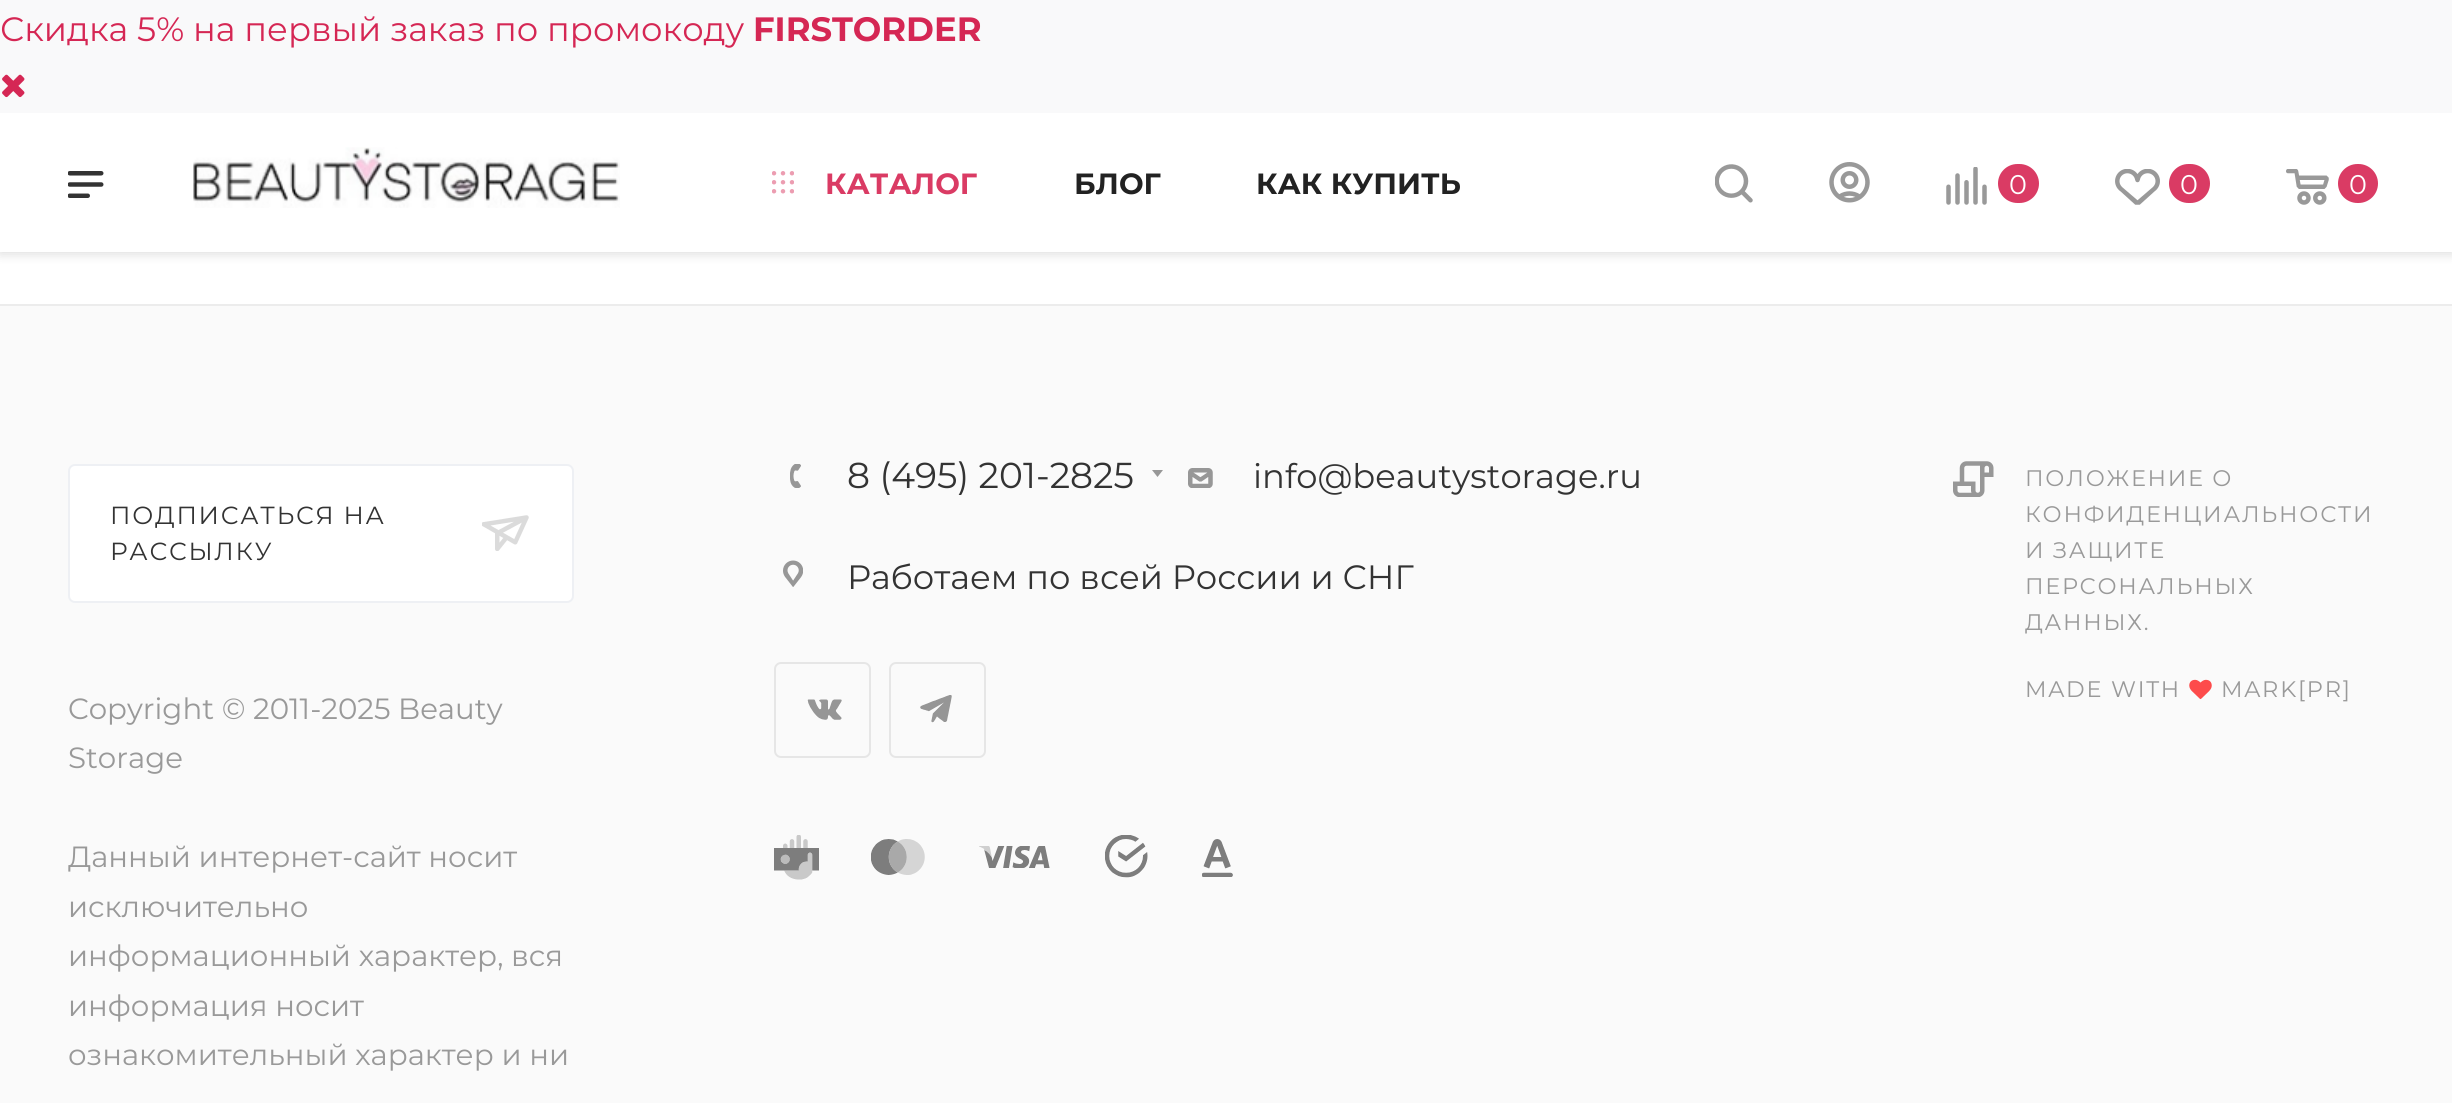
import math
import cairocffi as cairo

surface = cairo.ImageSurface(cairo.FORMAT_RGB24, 2452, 1103)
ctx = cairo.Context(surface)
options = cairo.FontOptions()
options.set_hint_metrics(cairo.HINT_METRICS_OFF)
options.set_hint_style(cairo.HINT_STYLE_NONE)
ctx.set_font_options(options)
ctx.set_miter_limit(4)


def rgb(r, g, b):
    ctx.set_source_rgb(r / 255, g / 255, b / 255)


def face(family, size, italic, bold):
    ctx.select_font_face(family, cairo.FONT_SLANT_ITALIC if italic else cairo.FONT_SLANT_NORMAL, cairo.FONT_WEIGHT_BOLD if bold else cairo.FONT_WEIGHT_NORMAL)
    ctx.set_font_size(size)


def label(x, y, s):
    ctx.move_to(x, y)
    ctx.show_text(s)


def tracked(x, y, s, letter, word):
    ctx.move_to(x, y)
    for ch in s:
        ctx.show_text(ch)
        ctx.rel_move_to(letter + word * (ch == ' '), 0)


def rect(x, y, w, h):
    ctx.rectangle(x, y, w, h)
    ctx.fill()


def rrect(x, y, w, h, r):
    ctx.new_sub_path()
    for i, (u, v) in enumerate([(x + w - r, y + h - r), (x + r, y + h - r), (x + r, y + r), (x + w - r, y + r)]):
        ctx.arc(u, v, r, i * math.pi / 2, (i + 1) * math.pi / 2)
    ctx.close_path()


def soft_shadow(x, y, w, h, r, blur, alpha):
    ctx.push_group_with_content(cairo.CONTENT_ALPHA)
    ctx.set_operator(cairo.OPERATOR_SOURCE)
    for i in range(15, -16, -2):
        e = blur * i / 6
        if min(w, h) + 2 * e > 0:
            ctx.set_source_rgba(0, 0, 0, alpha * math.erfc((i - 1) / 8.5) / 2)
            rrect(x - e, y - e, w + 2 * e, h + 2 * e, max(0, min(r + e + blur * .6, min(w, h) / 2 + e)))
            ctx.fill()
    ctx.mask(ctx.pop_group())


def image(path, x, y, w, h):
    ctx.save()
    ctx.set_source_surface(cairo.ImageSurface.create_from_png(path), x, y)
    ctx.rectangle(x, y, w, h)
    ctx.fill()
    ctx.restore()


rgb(255, 255, 255)
ctx.paint()
rgb(0, 0, 0)
soft_shadow(0, 2, 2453, 252, 0, 5.5, 0.14)
rgb(255, 255, 255)
rect(0, 113, 2452, 139)
rgb(249, 249, 250)
rect(0, 0, 2452, 113)
face('Montserrat', 33.75, 0, 0)
rgb(213, 39, 84)
label(0, 41, 'Скидка 5% на первый заказ по промокоду')
face('Montserrat', 33.75, 0, 1)
label(753, 41, 'FIRSTORDER')
image('image0.png', 2, 74, 23, 24)
image('image1.png', 68, 171, 36, 27)
image('image2.png', 193, 147, 427, 61)
image('image3.png', 772, 171, 22, 23)
face('Montserrat', 29.25, 0, 1)
rgb(218, 59, 100)
label(825, 194, 'КАТАЛОГ')
rgb(34, 34, 34)
label(1074, 194, 'БЛОГ')
label(1256, 194, 'КАК КУПИТЬ')
image('image4.png', 1715, 164, 38, 39)
image('image5.png', 1829, 162, 41, 41)
image('image6.png', 1946, 167, 41, 38)
rgb(218, 59, 100)
rrect(1998, 164, 41, 39, 19.5)
ctx.fill()
face('Montserrat', 27, 0, 0)
rgb(255, 255, 255)
label(2009, 194, '0')
image('image7.png', 2115, 169, 45, 36)
rgb(218, 59, 100)
rrect(2169, 164, 41, 39, 19.5)
ctx.fill()
rgb(255, 255, 255)
label(2180, 194, '0')
image('image8.png', 2286, 169, 43, 36)
rgb(218, 59, 100)
rrect(2338, 164, 40, 39, 19.5)
ctx.fill()
rgb(255, 255, 255)
label(2349, 194, '0')
rgb(250, 250, 250)
rect(0, 306, 2452, 797)
rgb(236, 236, 236)
rect(0, 304, 2452, 2)
rgb(255, 255, 255)
rrect(69, 465, 504, 137, 6)
ctx.fill_preserve()
rgb(238, 240, 244)
ctx.stroke()
face('Montserrat', 24.75, 0, 0)
rgb(51, 51, 51)
tracked(110, 524, 'ПОДПИСАТЬСЯ НА', 1.75, 0)
image('image9.png', 482, 515, 47, 36)
tracked(110, 560, 'РАССЫЛКУ', 1.75, 0)
face('Montserrat', 29.25, 0, 0)
rgb(153, 153, 153)
label(68, 719, 'Copyright © 2011-2025 Beauty')
label(68, 768, 'Storage')
label(68, 867, 'Данный интернет-сайт носит')
label(68, 917, 'исключительно')
label(68, 966, 'информационный характер, вся')
label(68, 1016, 'информация носит')
label(68, 1065, 'ознакомительный характер и ни')
image('image10.png', 790, 464, 11, 24)
face('Montserrat', 36, 0, 0)
rgb(51, 51, 51)
label(847, 488, '8 (495) 201-2825')
rgb(151, 151, 151)
ctx.set_fill_rule(cairo.FILL_RULE_EVEN_ODD)
ctx.new_path()
ctx.move_to(1152, 470)
ctx.line_to(1163, 470)
ctx.line_to(1157.5, 477)
ctx.close_path()
ctx.fill()
image('image11.png', 1188, 468, 25, 20)
face('Montserrat', 33.75, 0, 0)
rgb(51, 51, 51)
label(1253, 488, 'info@beautystorage.ru')
image('image12.png', 783, 560, 20, 27)
label(847, 589, 'Работаем по всей России и СНГ')
image('image13.png', 807, 699, 35, 21)
rrect(775, 663, 95, 94, 6)
rgb(230, 230, 230)
ctx.stroke()
image('image14.png', 920, 695, 32, 28)
rrect(890, 663, 95, 94, 6)
ctx.stroke()
image('image15.png', 774, 835, 45, 45)
image('image16.png', 871, 839, 54, 36)
image('image17.png', 979, 846, 71, 22)
image('image18.png', 1105, 835, 43, 43)
image('image19.png', 1202, 839, 31, 38)
image('image20.png', 1953, 461, 41, 36)
face('Montserrat', 22.5, 0, 0)
rgb(153, 153, 153)
tracked(2025, 486, 'ПОЛОЖЕНИЕ О', 1.75, 0)
tracked(2025, 522, 'КОНФИДЕНЦИАЛЬНОСТИ', 1.75, 0)
tracked(2025, 558, 'И ЗАЩИТЕ', 1.75, 0)
tracked(2025, 594, 'ПЕРСОНАЛЬНЫХ', 1.75, 0)
tracked(2025, 630, 'ДАННЫХ.', 1.75, 0)
tracked(2025, 697, 'MADE WITH', 1.75, 0)
image('image21.png', 2189, 679, 23, 21)
tracked(2221, 697, 'MARK[PR]', 1.75, 0)
surface.write_to_png('render.png')
